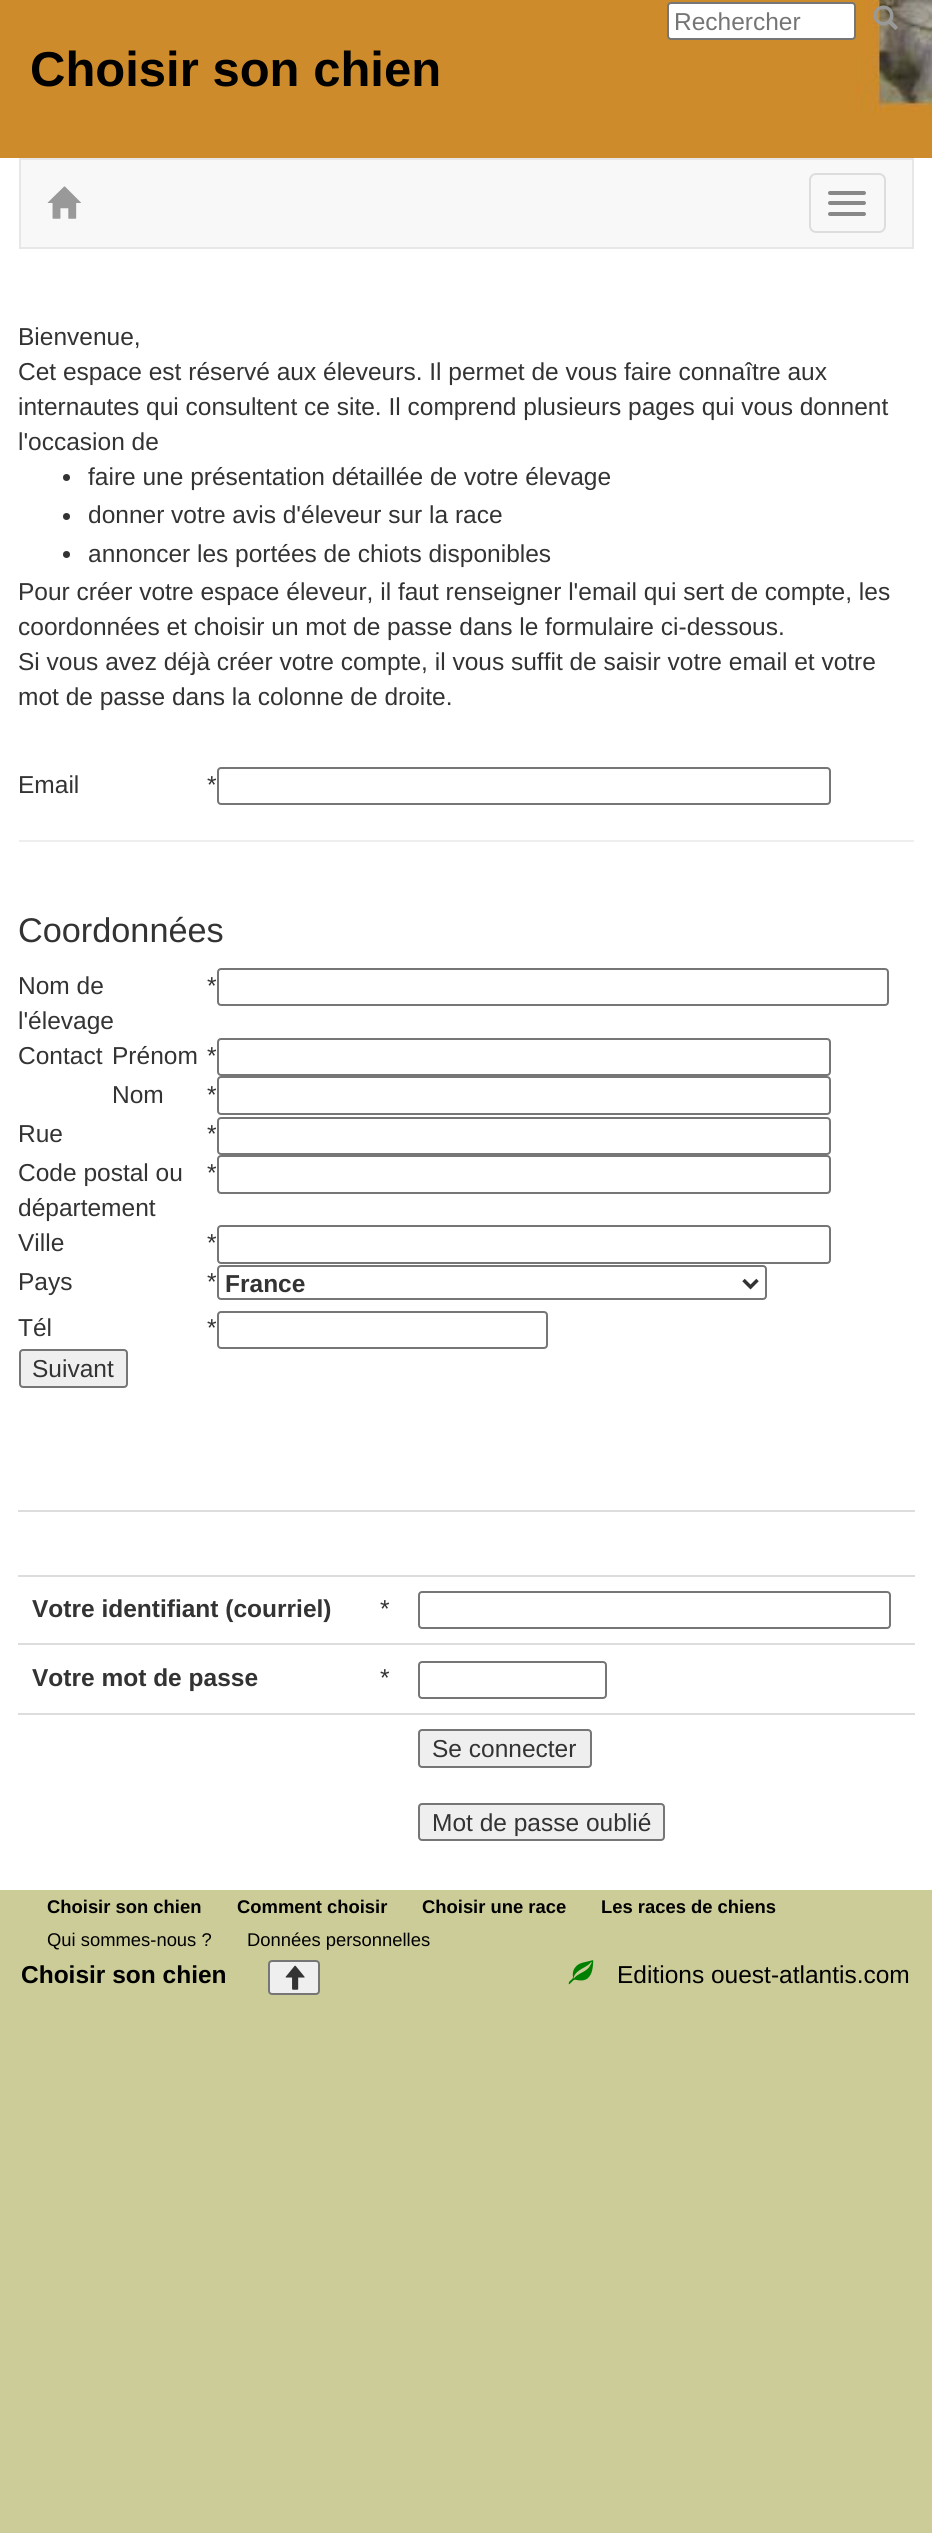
import math
import cairocffi as cairo

surface = cairo.ImageSurface(cairo.FORMAT_RGB24, 932, 2533)
ctx = cairo.Context(surface)
options = cairo.FontOptions()
options.set_hint_metrics(cairo.HINT_METRICS_OFF)
options.set_hint_style(cairo.HINT_STYLE_NONE)
ctx.set_font_options(options)
ctx.set_miter_limit(4)


def rgb(r, g, b):
    ctx.set_source_rgb(r / 255, g / 255, b / 255)


def face(family, size, italic, bold):
    ctx.select_font_face(family, cairo.FONT_SLANT_ITALIC if italic else cairo.FONT_SLANT_NORMAL, cairo.FONT_WEIGHT_BOLD if bold else cairo.FONT_WEIGHT_NORMAL)
    ctx.set_font_size(size)


def label(x, y, s):
    ctx.move_to(x, y)
    ctx.show_text(s)


def rect(x, y, w, h):
    ctx.rectangle(x, y, w, h)
    ctx.fill()


def rrect(x, y, w, h, r):
    ctx.new_sub_path()
    for i, (u, v) in enumerate([(x + w - r, y + h - r), (x + r, y + h - r), (x + r, y + r), (x + w - r, y + r)]):
        ctx.arc(u, v, r, i * math.pi / 2, (i + 1) * math.pi / 2)
    ctx.close_path()


def image(path, x, y, w, h):
    ctx.save()
    ctx.set_source_surface(cairo.ImageSurface.create_from_png(path), x, y)
    ctx.rectangle(x, y, w, h)
    ctx.fill()
    ctx.restore()


rgb(204, 204, 153)
ctx.paint()
image('image0.png', 0, 0, 932, 158)
rgb(255, 255, 255)
rrect(668, 3, 187, 36, 3)
ctx.fill_preserve()
rgb(118, 118, 118)
ctx.stroke()
face('Liberation Sans', 24.5, 0, 0)
rgb(117, 117, 117)
label(674, 30, 'Rechercher')
image('image1.png', 873, 5, 25, 25)
face('Liberation Sans', 49, 0, 1)
rgb(0, 0, 0)
label(30, 86, 'Choisir son chien')
rgb(255, 255, 255)
rect(0, 158, 932, 1732)
rgb(248, 248, 248)
ctx.rectangle(20, 159, 893, 89)
ctx.fill_preserve()
rgb(231, 231, 231)
ctx.stroke()
image('image2.png', 47, 186, 34, 33)
rrect(810, 174, 75, 58, 6)
rgb(221, 221, 221)
ctx.stroke()
rgb(136, 136, 136)
rrect(828, 191, 38, 4, 2)
ctx.fill()
rrect(828, 201, 38, 4, 2)
ctx.fill()
rrect(828, 212, 38, 4, 2)
ctx.fill()
face('Liberation Sans', 24.5, 0, 0)
rgb(51, 51, 51)
label(18, 345, 'Bienvenue,')
label(18, 380, 'Cet espace est réservé aux éleveurs. Il permet de vous faire connaître aux')
label(18, 415, 'internautes qui consultent ce site. Il comprend plusieurs pages qui vous donnent')
label(18, 450, 'l\'occasion de')
ctx.new_path()
ctx.arc(66.5, 477.5, 3.5, 0, 2 * math.pi)
ctx.fill()
label(88, 485, 'faire une présentation détaillée de votre élevage')
ctx.new_path()
ctx.arc(66.5, 516.5, 3.5, 0, 2 * math.pi)
ctx.fill()
label(88, 523, 'donner votre avis d\'éleveur sur la race')
ctx.new_path()
ctx.arc(66.5, 554.5, 3.5, 0, 2 * math.pi)
ctx.fill()
label(88, 562, 'annoncer les portées de chiots disponibles')
label(18, 600, 'Pour créer votre espace éleveur, il faut renseigner l\'email qui sert de compte, les')
label(18, 635, 'coordonnées et choisir un mot de passe dans le formulaire ci-dessous.')
label(18, 670, 'Si vous avez déjà créer votre compte, il vous suffit de saisir votre email et votre')
label(18, 705, 'mot de passe dans la colonne de droite.')
label(18, 793, 'Email')
label(207, 793, '*')
rrect(218, 768, 612, 36, 3)
rgb(118, 118, 118)
ctx.stroke()
rgb(238, 238, 238)
rect(19, 840, 895, 2)
face('Liberation Sans', 34.25, 0, 0)
rgb(51, 51, 51)
label(18, 942, 'Coordonnées')
face('Liberation Sans', 24.5, 0, 0)
label(18, 994, 'Nom de')
label(18, 1029, 'l\'élevage')
label(207, 994, '*')
rrect(218, 969, 670, 36, 3)
rgb(118, 118, 118)
ctx.stroke()
rgb(51, 51, 51)
label(18, 1064, 'Contact')
label(112, 1064, 'Prénom')
label(207, 1064, '*')
rrect(218, 1039, 612, 36, 3)
rgb(118, 118, 118)
ctx.stroke()
rgb(51, 51, 51)
label(112, 1103, 'Nom')
label(207, 1103, '*')
rrect(218, 1077, 612, 37, 3)
rgb(118, 118, 118)
ctx.stroke()
rgb(51, 51, 51)
label(18, 1142, 'Rue')
label(207, 1142, '*')
rrect(218, 1118, 612, 36, 3)
rgb(118, 118, 118)
ctx.stroke()
rgb(51, 51, 51)
label(18, 1181, 'Code postal ou')
label(18, 1216, 'département')
label(207, 1181, '*')
rrect(218, 1156, 612, 37, 3)
rgb(118, 118, 118)
ctx.stroke()
rgb(51, 51, 51)
label(18, 1251, 'Ville')
label(207, 1251, '*')
rrect(218, 1226, 612, 37, 3)
rgb(118, 118, 118)
ctx.stroke()
rgb(51, 51, 51)
label(18, 1290, 'Pays')
label(207, 1290, '*')
rrect(218, 1266, 548, 33, 3)
rgb(118, 118, 118)
ctx.stroke()
ctx.new_path()
ctx.move_to(743.5, 1280)
ctx.line_to(750.5, 1287)
ctx.line_to(757.5, 1280)
rgb(51, 51, 51)
ctx.set_line_width(3.5)
ctx.stroke()
face('Liberation Sans', 24.5, 0, 1)
label(225, 1292, 'France')
face('Liberation Sans', 24.5, 0, 0)
label(18, 1336, 'Tél')
label(207, 1336, '*')
rrect(218, 1312, 329, 36, 3)
rgb(118, 118, 118)
ctx.set_line_width(2)
ctx.stroke()
rgb(239, 239, 239)
rrect(20, 1350, 107, 37, 3)
ctx.fill_preserve()
rgb(118, 118, 118)
ctx.stroke()
rgb(51, 51, 51)
label(32, 1377, 'Suivant')
rgb(221, 221, 221)
rect(18, 1510, 897, 2)
rect(18, 1575, 897, 2)
rrect(419, 1592, 471, 36, 3)
rgb(118, 118, 118)
ctx.stroke()
face('Liberation Sans', 24.5, 0, 1)
rgb(51, 51, 51)
label(32, 1617, 'Votre identifiant (courriel)')
face('Liberation Sans', 24.5, 0, 0)
label(380, 1617, '*')
rgb(221, 221, 221)
rect(18, 1643, 897, 2)
rrect(419, 1662, 187, 36, 3)
rgb(118, 118, 118)
ctx.stroke()
face('Liberation Sans', 24.5, 0, 1)
rgb(51, 51, 51)
label(32, 1686, 'Votre mot de passe')
face('Liberation Sans', 24.5, 0, 0)
label(380, 1686, '*')
rgb(221, 221, 221)
rect(18, 1713, 897, 2)
rgb(239, 239, 239)
rrect(419, 1730, 172, 37, 3)
ctx.fill_preserve()
rgb(118, 118, 118)
ctx.stroke()
rgb(51, 51, 51)
label(432, 1757, 'Se connecter')
rgb(239, 239, 239)
rrect(419, 1804, 245, 36, 3)
ctx.fill_preserve()
rgb(118, 118, 118)
ctx.stroke()
rgb(51, 51, 51)
label(432, 1831, 'Mot de passe oublié')
face('Liberation Sans', 18.4, 0, 1)
rgb(0, 0, 0)
label(47, 1913, 'Choisir son chien')
label(237, 1913, 'Comment choisir')
label(422, 1913, 'Choisir une race')
label(601, 1913, 'Les races de chiens')
face('Liberation Sans', 18.4, 0, 0)
label(47, 1946, 'Qui sommes-nous ?')
label(247, 1946, 'Données personnelles')
face('Liberation Sans', 24.5, 0, 1)
label(21, 1983, 'Choisir son chien')
rgb(239, 239, 239)
rrect(269, 1961, 50, 33, 3)
ctx.fill_preserve()
rgb(118, 118, 118)
ctx.stroke()
image('image3.png', 285, 1965, 20, 25)
image('image4.png', 568, 1960, 26, 25)
face('Liberation Sans', 24.5, 0, 0)
rgb(0, 0, 0)
label(617, 1983, 'Editions ouest-atlantis.com')
surface.write_to_png('render.png')
